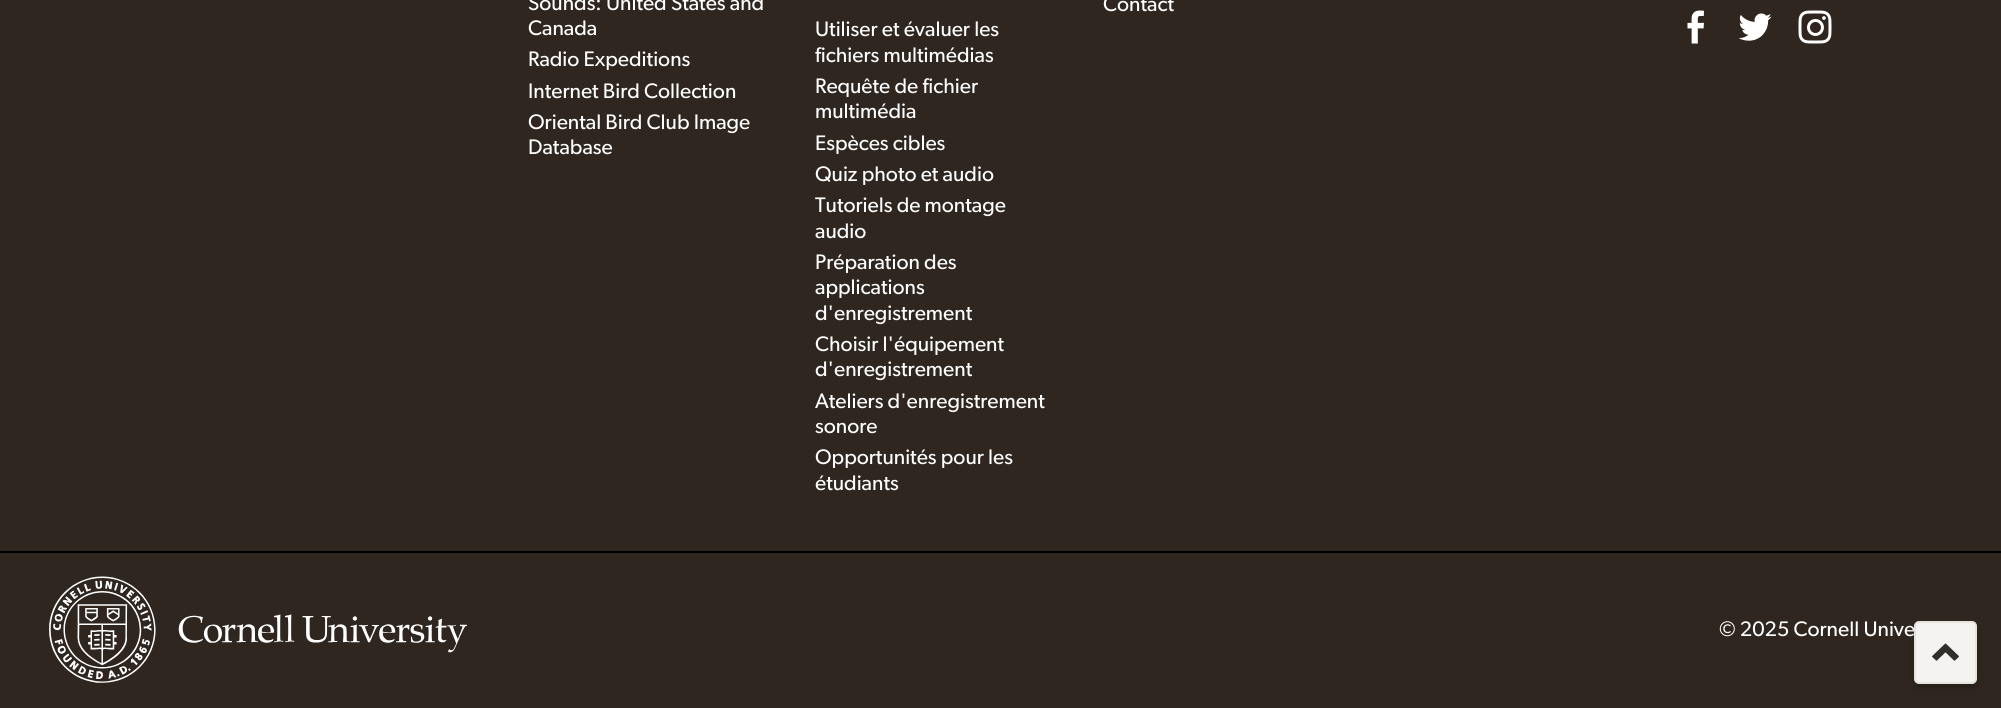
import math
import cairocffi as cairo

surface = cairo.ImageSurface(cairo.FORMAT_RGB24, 2001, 708)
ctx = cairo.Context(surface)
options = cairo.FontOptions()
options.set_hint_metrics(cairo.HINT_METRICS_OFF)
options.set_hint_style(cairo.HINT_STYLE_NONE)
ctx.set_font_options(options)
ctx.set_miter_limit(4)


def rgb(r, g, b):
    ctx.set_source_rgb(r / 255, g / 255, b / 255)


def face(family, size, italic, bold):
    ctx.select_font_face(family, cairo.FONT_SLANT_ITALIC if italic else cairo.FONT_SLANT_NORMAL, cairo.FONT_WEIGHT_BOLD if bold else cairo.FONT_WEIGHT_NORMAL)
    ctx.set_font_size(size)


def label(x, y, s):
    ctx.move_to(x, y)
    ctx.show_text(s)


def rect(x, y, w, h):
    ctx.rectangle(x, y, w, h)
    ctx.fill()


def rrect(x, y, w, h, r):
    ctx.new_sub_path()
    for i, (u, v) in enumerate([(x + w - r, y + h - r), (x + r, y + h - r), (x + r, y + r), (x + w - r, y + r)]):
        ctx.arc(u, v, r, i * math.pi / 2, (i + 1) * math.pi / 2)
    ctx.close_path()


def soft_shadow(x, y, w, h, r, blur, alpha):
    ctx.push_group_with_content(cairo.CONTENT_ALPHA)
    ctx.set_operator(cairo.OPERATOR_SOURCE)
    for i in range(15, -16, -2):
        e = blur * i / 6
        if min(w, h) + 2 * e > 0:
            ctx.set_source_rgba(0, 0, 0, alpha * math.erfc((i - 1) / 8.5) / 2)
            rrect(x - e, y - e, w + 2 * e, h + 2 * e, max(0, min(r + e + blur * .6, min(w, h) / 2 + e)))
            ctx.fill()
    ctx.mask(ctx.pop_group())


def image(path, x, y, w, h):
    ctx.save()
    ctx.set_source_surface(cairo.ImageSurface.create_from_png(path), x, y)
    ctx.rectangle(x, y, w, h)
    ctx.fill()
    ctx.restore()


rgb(46, 38, 31)
ctx.paint()
face('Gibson', 21.1, 0, 0)
rgb(255, 255, 255)
label(528, 10, 'Sounds: United States and')
label(528, 35, 'Canada')
label(528, 66, 'Radio Expeditions')
label(528, 98, 'Internet Bird Collection')
label(528, 129, 'Oriental Bird Club Image')
label(528, 154, 'Database')
label(1103, 11, 'Contact')
label(815, 36, 'Utiliser et évaluer les')
label(815, 62, 'fichiers multimédias')
label(815, 93, 'Requête de fichier')
label(815, 118, 'multimédia')
label(815, 150, 'Espèces cibles')
label(815, 181, 'Quiz photo et audio')
label(815, 212, 'Tutoriels de montage')
label(815, 238, 'audio')
label(815, 269, 'Préparation des')
label(815, 294, 'applications')
label(815, 320, 'd\'enregistrement')
label(815, 351, 'Choisir l\'équipement')
label(815, 376, 'd\'enregistrement')
label(815, 408, 'Ateliers d\'enregistrement')
label(815, 433, 'sonore')
label(815, 464, 'Opportunités pour les')
label(815, 490, 'étudiants')
image('image0.png', 1687, 10, 17, 34)
image('image1.png', 1738, 13, 34, 28)
image('image2.png', 1798, 10, 34, 34)
rgb(0, 0, 0)
rect(0, 551, 2001, 2)
image('image3.png', 49, 576, 418, 107)
rgb(255, 255, 255)
label(1719, 636, '© 2025 Cornell Unive')
rgb(0, 0, 0)
soft_shadow(1914, 624, 63, 63, 5, 3, 0.2)
rgb(244, 243, 241)
rrect(1915, 622, 61, 61, 4)
ctx.fill_preserve()
rgb(229, 227, 220)
ctx.stroke()
image('image4.png', 1932, 643, 27, 18)
surface.write_to_png('render.png')
